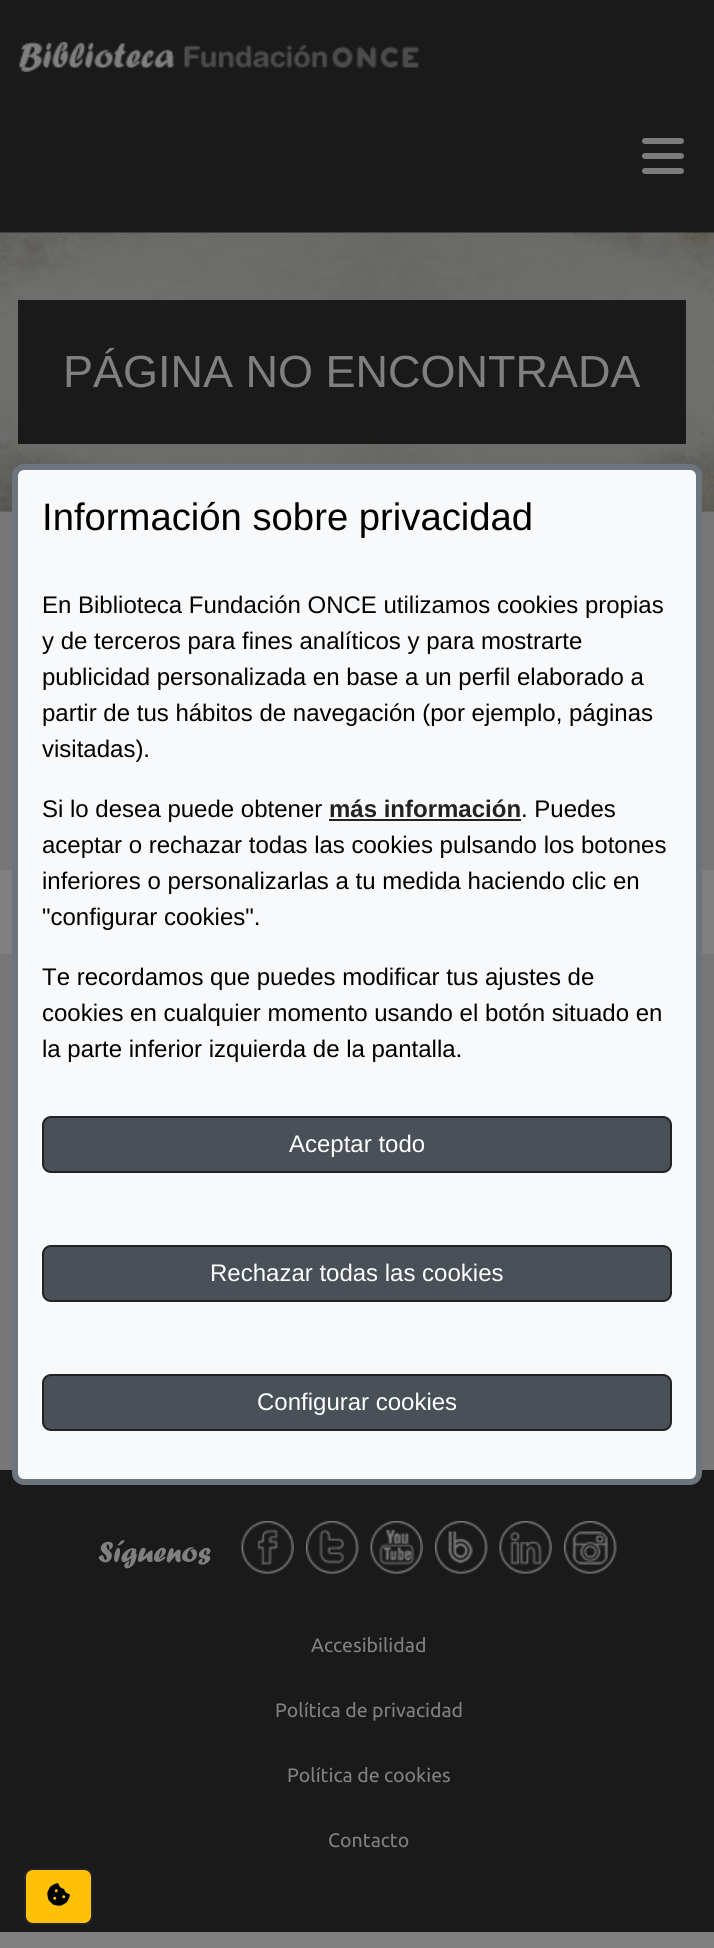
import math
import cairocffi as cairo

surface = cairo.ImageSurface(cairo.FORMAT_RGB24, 714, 1948)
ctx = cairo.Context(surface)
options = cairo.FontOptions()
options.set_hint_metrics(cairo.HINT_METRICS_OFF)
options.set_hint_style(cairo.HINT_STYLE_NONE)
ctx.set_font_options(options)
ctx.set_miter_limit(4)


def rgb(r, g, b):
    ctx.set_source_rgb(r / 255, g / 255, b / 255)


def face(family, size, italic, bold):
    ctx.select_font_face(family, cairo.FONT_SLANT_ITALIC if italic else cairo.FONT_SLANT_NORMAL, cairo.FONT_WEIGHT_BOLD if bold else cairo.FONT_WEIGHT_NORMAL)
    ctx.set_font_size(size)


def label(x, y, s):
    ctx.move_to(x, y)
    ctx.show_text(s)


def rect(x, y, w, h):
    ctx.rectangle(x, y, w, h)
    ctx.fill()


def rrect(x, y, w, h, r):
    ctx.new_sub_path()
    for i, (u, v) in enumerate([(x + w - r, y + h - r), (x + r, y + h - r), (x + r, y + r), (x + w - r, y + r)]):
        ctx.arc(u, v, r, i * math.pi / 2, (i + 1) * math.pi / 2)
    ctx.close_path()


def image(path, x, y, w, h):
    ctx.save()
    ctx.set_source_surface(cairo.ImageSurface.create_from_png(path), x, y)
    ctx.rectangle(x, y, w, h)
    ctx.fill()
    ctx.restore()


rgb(128, 128, 128)
ctx.paint()
rgb(26, 26, 26)
rect(0, 0, 714, 233)
image('image0.png', 19, 42, 400, 30)
image('image1.png', 642, 138, 42, 36)
rgb(110, 111, 108)
rect(0, 511, 714, 1)
image('image2.png', 0, 232, 714, 280)
rgb(26, 26, 26)
rect(18, 300, 668, 144)
face('Liberation Sans', 45, 0, 0)
rgb(128, 128, 128)
label(63, 387, 'PÁGINA NO ENCONTRADA')
rgb(119, 119, 119)
rect(0, 512, 714, 358)
rect(0, 954, 714, 516)
rgb(26, 26, 26)
rect(0, 1470, 714, 462)
face('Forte', 30, 0, 0)
rgb(128, 128, 128)
label(98, 1562, 'Síguenos')
image('image3.png', 241, 1521, 53, 53)
image('image4.png', 306, 1521, 53, 53)
image('image5.png', 370, 1521, 53, 53)
image('image6.png', 435, 1521, 53, 53)
image('image7.png', 499, 1521, 53, 53)
image('image8.png', 564, 1521, 53, 53)
face('Ubuntu', 19.5, 0, 0)
label(311, 1652, 'Accesibilidad')
label(275, 1717, 'Política de privacidad')
label(287, 1782, 'Política de cookies')
label(328, 1847, 'Contacto')
rgb(248, 249, 250)
rrect(15, 467, 684, 1015, 9)
ctx.fill_preserve()
rgb(108, 117, 125)
ctx.set_line_width(6)
ctx.stroke()
face('Liberation Sans', 38.25, 0, 0)
rgb(0, 0, 0)
label(42, 530, 'Información sobre privacidad')
face('Liberation Sans', 24, 0, 0)
label(42, 613, 'En Biblioteca Fundación ONCE utilizamos cookies propias')
label(42, 649, 'y de terceros para fines analíticos y para mostrarte')
label(42, 685, 'publicidad personalizada en base a un perfil elaborado a')
label(42, 721, 'partir de tus hábitos de navegación (por ejemplo, páginas')
label(42, 757, 'visitadas).')
label(42, 817, 'Si lo desea puede obtener')
face('Liberation Sans', 24, 0, 1)
rgb(34, 34, 34)
label(329, 817, 'más información')
rect(329, 819, 192, 2)
face('Liberation Sans', 24, 0, 0)
rgb(0, 0, 0)
label(521, 817, '. Puedes')
label(42, 853, 'aceptar o rechazar todas las cookies pulsando los botones')
label(42, 889, 'inferiores o personalizarlas a tu medida haciendo clic en')
label(42, 925, '"configurar cookies".')
label(42, 985, 'Te recordamos que puedes modificar tus ajustes de')
label(42, 1021, 'cookies en cualquier momento usando el botón situado en')
label(42, 1057, 'la parte inferior izquierda de la pantalla.')
rgb(73, 80, 87)
rrect(43, 1117, 628, 55, 8)
ctx.fill_preserve()
rgb(34, 34, 34)
ctx.set_line_width(2)
ctx.stroke()
rgb(255, 255, 255)
label(289, 1152, 'Aceptar todo')
rgb(73, 80, 87)
rrect(43, 1246, 628, 55, 8)
ctx.fill_preserve()
rgb(34, 34, 34)
ctx.stroke()
rgb(255, 255, 255)
label(210, 1281, 'Rechazar todas las cookies')
rgb(73, 80, 87)
rrect(43, 1375, 628, 55, 8)
ctx.fill_preserve()
rgb(34, 34, 34)
ctx.stroke()
rgb(255, 255, 255)
label(257, 1410, 'Configurar cookies')
rgb(255, 193, 7)
rrect(25, 1869, 67, 55, 8)
ctx.fill_preserve()
rgb(33, 37, 41)
ctx.stroke()
image('image9.png', 47, 1883, 23, 23)
surface.write_to_png('render.png')
